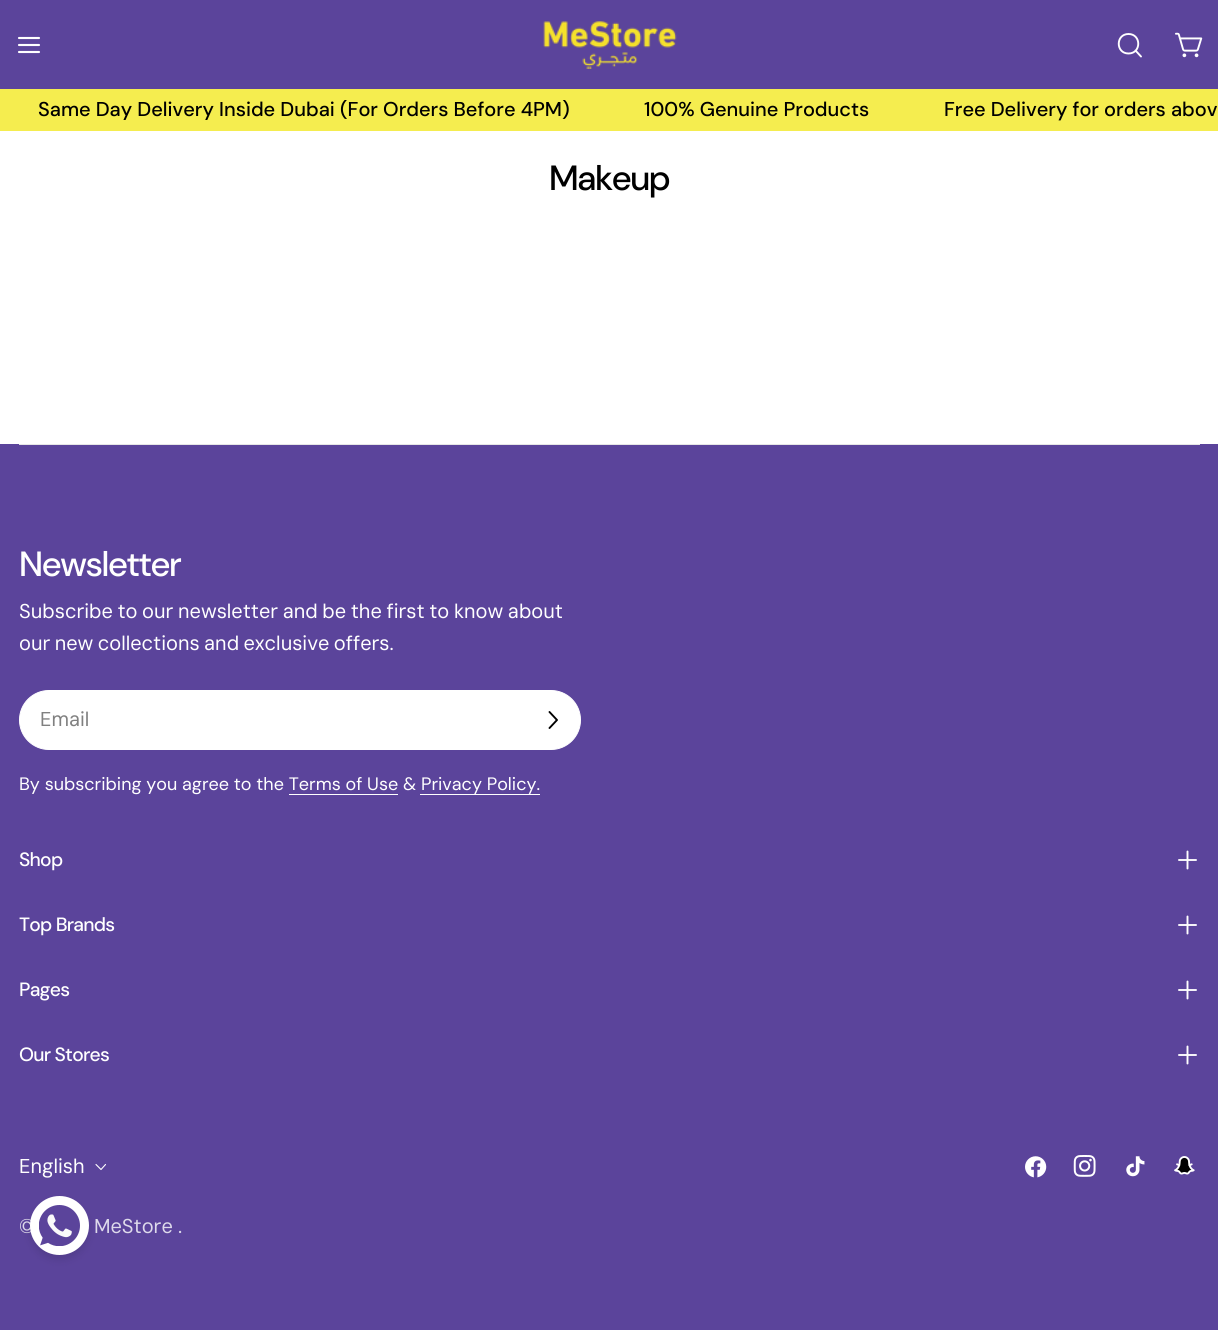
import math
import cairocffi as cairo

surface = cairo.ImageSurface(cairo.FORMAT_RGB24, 1218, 1330)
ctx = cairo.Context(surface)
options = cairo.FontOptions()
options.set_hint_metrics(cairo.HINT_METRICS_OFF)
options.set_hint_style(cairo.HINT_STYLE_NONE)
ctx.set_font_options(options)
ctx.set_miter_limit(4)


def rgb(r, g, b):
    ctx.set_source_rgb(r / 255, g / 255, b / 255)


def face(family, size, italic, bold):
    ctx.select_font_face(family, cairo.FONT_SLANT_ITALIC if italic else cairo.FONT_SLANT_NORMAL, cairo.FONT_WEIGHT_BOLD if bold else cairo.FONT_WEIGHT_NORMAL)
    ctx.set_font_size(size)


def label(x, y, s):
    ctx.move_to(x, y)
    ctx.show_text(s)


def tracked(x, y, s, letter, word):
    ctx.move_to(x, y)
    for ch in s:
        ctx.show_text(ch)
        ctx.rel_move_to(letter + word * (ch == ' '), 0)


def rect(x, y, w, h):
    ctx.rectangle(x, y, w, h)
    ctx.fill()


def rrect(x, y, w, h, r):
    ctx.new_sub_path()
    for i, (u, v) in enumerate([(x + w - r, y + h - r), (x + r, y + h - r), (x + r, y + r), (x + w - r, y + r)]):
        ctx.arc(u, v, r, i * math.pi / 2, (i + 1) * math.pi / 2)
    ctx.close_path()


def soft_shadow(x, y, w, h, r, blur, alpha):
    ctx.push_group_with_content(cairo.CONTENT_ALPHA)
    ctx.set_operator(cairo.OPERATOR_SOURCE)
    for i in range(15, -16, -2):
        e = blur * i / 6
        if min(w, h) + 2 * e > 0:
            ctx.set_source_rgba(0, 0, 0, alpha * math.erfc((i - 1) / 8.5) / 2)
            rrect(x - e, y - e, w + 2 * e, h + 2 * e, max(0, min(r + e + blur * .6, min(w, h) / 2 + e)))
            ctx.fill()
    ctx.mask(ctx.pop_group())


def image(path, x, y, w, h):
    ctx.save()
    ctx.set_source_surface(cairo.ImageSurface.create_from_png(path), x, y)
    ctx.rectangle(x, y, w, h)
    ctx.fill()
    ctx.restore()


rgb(255, 255, 255)
ctx.paint()
rgb(91, 68, 155)
rect(0, 0, 1218, 89)
ctx.new_path()
ctx.move_to(19, 45)
ctx.line_to(39, 45)
ctx.move_to(19, 38)
ctx.line_to(39, 38)
ctx.move_to(19, 52)
ctx.line_to(39, 52)
rgb(255, 255, 255)
ctx.set_line_width(2.1)
ctx.set_line_cap(cairo.LINE_CAP_ROUND)
ctx.set_line_join(cairo.LINE_JOIN_ROUND)
ctx.stroke()
image('image0.png', 543, 21, 134, 48)
ctx.new_path()
ctx.move_to(1128.5, 53.5)
ctx.curve_to(1141.5, 53.5, 1141.5, 34, 1128.5, 34)
ctx.curve_to(1115.5, 34, 1115.5, 53.5, 1128.5, 53.5)
ctx.close_path()
ctx.move_to(1135.5, 50.5)
ctx.line_to(1141, 56.5)
ctx.set_line_width(1.9)
ctx.stroke()
image('image1.png', 1175, 32, 28, 26)
rgb(245, 237, 79)
rect(0, 89, 1218, 42)
ctx.save()
ctx.rectangle(0, 100, 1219, 20)
ctx.clip()
face('DM Sans Medium', 20, 0, 0)
rgb(0, 0, 0)
label(38, 116, 'Same Day Delivery Inside Dubai (For Orders Before 4PM)')
ctx.restore()
face('DM Sans Medium', 20, 0, 0)
rgb(0, 0, 0)
label(644, 116, '100% Genuine Products')
label(944, 116, 'Free Delivery for orders abov')
face('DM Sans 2 Medium', 35, 0, 0)
tracked(549, 190, 'Makeup', -1.4, 0)
rgb(91, 68, 155)
rect(0, 444, 1218, 886)
rgb(230, 230, 230)
rect(19, 444, 1181, 1)
rgb(255, 255, 255)
tracked(19, 576, 'Newsletter', -1.4, 0)
face('DM Sans', 20, 0, 0)
tracked(19, 618, 'Subscribe to our newsletter and be the first to know about', 0, -0.75)
tracked(19, 650, 'our new collections and exclusive offers.', 0, -1)
rrect(19.5, 690.5, 561, 59, 29.5)
ctx.fill_preserve()
ctx.set_line_width(1)
ctx.set_line_cap(cairo.LINE_CAP_BUTT)
ctx.set_line_join(cairo.LINE_JOIN_MITER)
ctx.stroke()
rgb(128, 128, 128)
label(40, 726, 'Email')
ctx.new_path()
ctx.move_to(549.5, 712)
ctx.line_to(557, 720)
ctx.line_to(549.5, 728)
rgb(0, 0, 0)
ctx.set_line_width(1.9)
ctx.set_line_cap(cairo.LINE_CAP_ROUND)
ctx.set_line_join(cairo.LINE_JOIN_ROUND)
ctx.stroke()
face('DM Sans 2', 18, 0, 0)
rgb(255, 255, 255)
label(19, 790, 'By subscribing you agree to the Terms of Use & Privacy Policy.')
rect(289, 794, 109, 1)
rect(420, 794, 120, 1)
face('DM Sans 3 Medium', 19.25, 0, 0)
tracked(19, 866, 'Shop', -0.75, 0)
ctx.new_path()
ctx.move_to(1179, 860)
ctx.line_to(1196, 860)
ctx.move_to(1187.5, 851.5)
ctx.line_to(1187.5, 868.5)
ctx.stroke()
tracked(19, 931, 'Top Brands', -0.75, 0)
ctx.new_path()
ctx.move_to(1179, 925)
ctx.line_to(1196, 925)
ctx.move_to(1187.5, 916.5)
ctx.line_to(1187.5, 933.5)
ctx.stroke()
tracked(19, 996, 'Pages', -0.75, 0)
ctx.new_path()
ctx.move_to(1179, 990)
ctx.line_to(1196, 990)
ctx.move_to(1187.5, 981.5)
ctx.line_to(1187.5, 998.5)
ctx.stroke()
tracked(19, 1061, 'Our Stores', -0.75, 0)
ctx.new_path()
ctx.move_to(1179, 1055)
ctx.line_to(1196, 1055)
ctx.move_to(1187.5, 1046.5)
ctx.line_to(1187.5, 1063.5)
ctx.stroke()
face('DM Sans', 20, 0, 0)
label(19, 1173, 'English')
ctx.new_path()
ctx.move_to(105.5, 1164.5)
ctx.line_to(101, 1169.5)
ctx.line_to(96, 1164.5)
ctx.set_line_width(1.1)
ctx.stroke()
image('image2.png', 1025, 1156, 22, 22)
image('image3.png', 1073, 1155, 23, 22)
image('image4.png', 1126, 1156, 19, 21)
image('image5.png', 1174, 1156, 21, 19)
rgb(222, 218, 235)
label(19, 1233, '©')
label(94, 1233, 'MeStore')
label(178, 1233, '.')
rgb(0, 0, 0)
soft_shadow(30, 1201, 59, 59, 29.5, 4, 0.1)
rgb(255, 255, 255)
ctx.arc(59.5, 1225.5, 29.5, 0, 2 * math.pi)
ctx.fill()
image('image6.png', 39, 1205, 41, 41)
surface.write_to_png('render.png')
